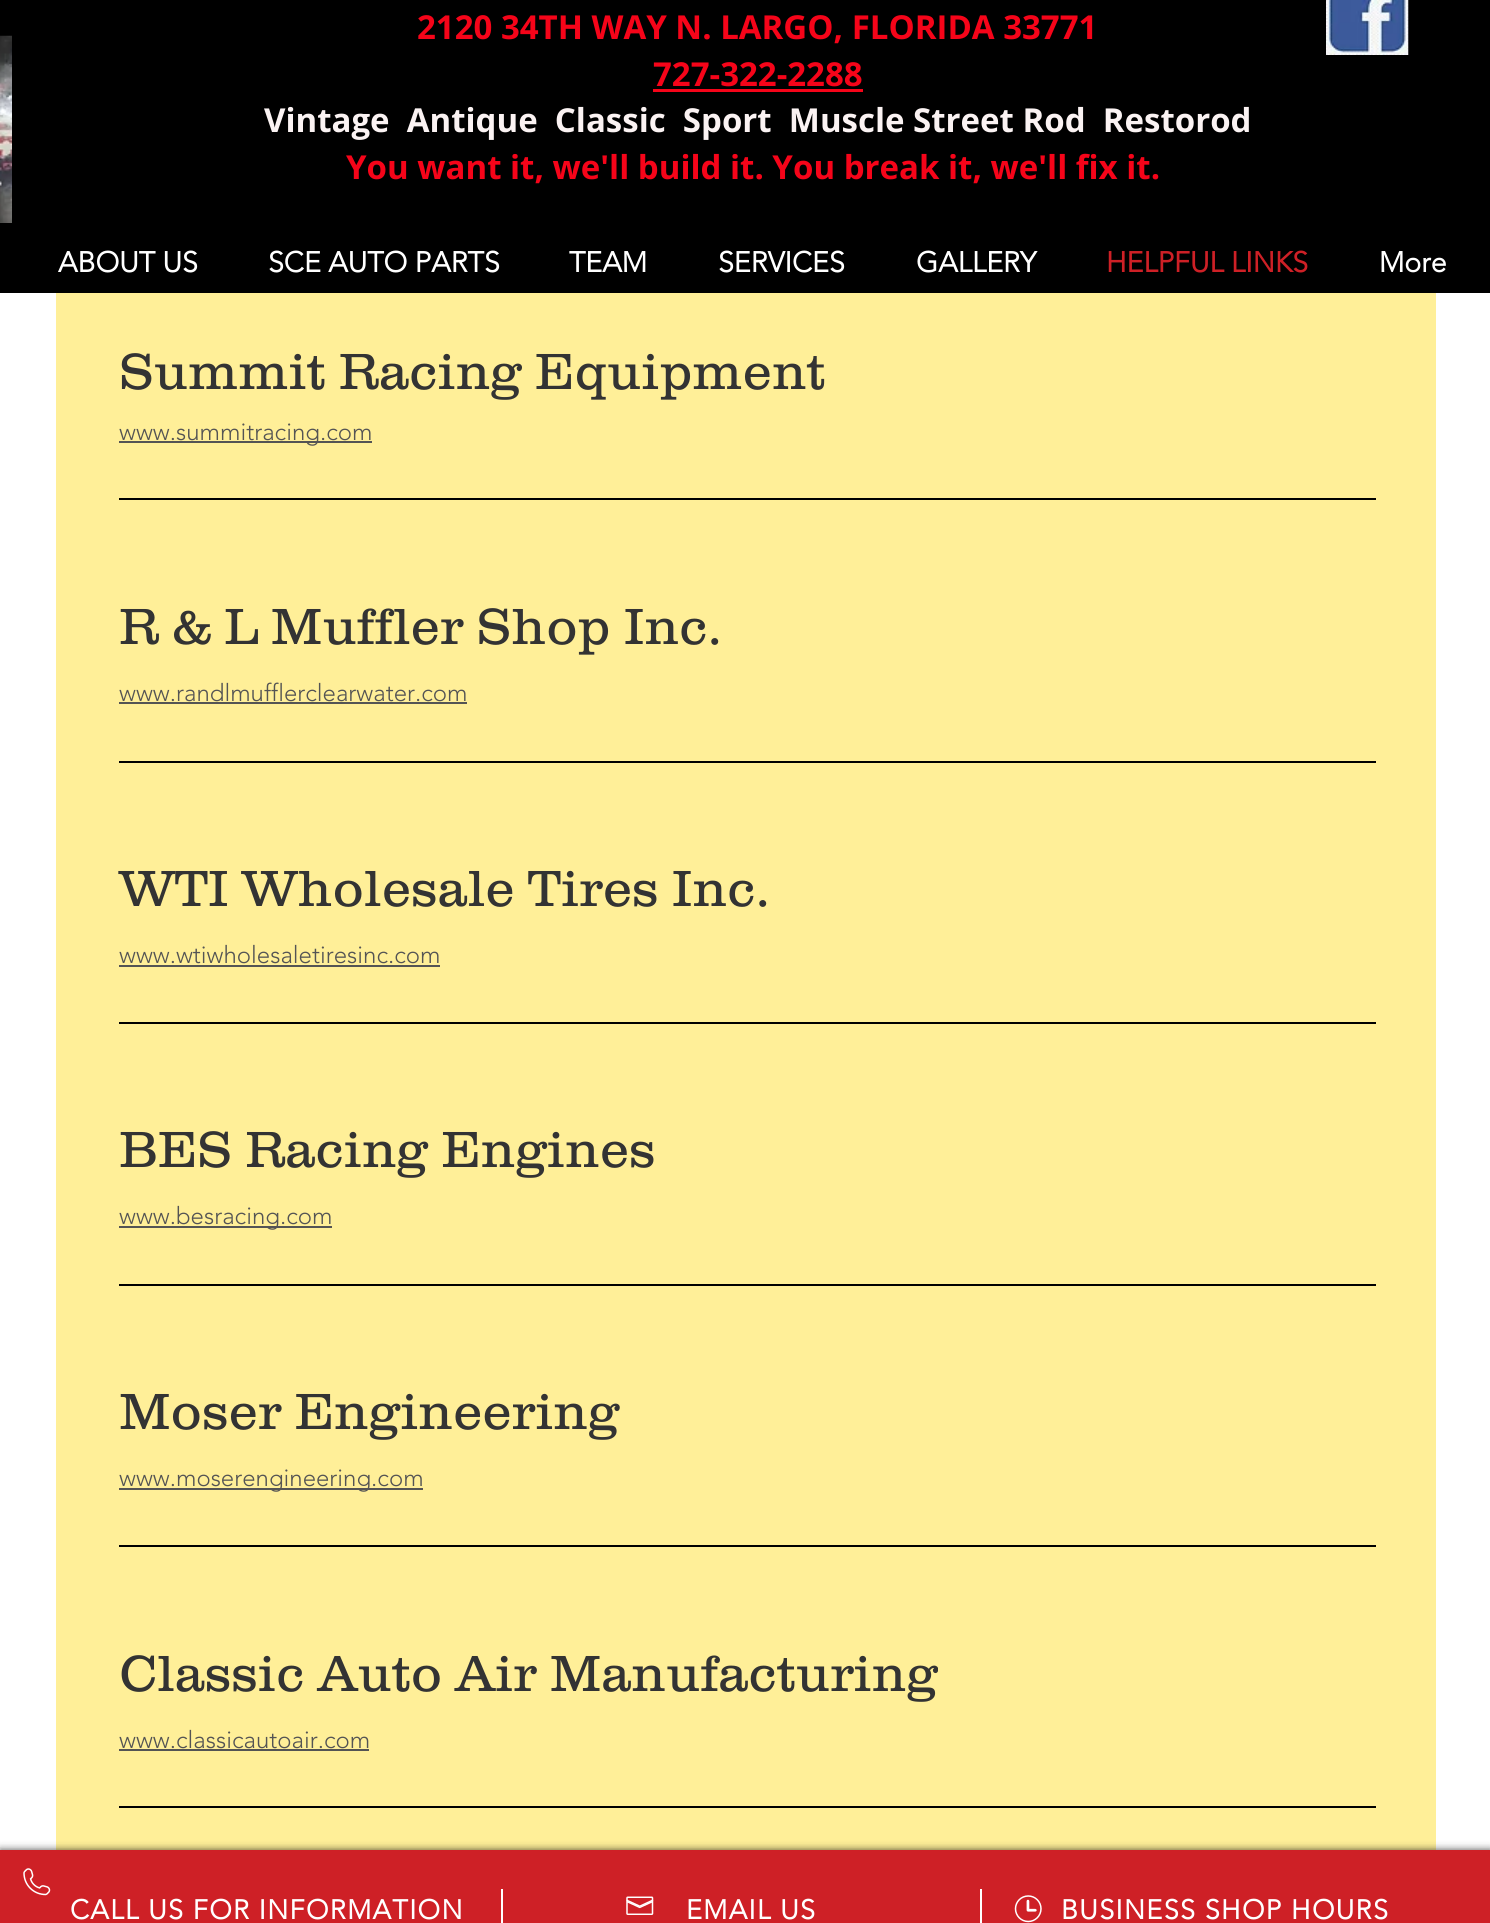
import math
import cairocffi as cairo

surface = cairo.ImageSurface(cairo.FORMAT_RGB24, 1490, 1923)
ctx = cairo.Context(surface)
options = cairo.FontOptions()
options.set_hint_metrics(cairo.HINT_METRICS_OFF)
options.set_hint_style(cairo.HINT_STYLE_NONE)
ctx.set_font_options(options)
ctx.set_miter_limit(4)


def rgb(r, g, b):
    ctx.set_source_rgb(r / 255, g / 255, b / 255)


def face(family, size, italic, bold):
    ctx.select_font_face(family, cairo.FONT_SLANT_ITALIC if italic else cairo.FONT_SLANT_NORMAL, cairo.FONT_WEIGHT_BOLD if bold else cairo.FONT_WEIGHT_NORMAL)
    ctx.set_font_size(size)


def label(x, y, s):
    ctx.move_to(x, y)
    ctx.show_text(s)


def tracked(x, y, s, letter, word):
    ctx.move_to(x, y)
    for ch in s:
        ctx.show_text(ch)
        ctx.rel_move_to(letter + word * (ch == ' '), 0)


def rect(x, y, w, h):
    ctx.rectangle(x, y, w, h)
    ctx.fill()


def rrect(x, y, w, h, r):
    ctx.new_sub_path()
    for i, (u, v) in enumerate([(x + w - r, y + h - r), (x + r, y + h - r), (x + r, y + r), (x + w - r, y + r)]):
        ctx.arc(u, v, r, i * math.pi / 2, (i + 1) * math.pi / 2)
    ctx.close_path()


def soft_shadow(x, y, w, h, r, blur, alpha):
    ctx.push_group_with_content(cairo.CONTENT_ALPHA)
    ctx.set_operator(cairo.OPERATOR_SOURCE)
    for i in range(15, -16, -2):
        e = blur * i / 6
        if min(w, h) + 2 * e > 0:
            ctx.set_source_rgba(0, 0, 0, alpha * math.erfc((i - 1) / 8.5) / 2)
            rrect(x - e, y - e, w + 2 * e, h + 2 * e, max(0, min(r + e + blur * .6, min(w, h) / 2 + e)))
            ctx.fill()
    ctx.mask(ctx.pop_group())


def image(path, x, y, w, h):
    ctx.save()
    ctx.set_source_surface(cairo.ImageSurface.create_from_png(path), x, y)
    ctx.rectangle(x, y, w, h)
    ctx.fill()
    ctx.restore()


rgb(255, 255, 255)
ctx.paint()
rgb(0, 0, 0)
rect(0, 0, 1490, 293)
face('Open Sans', 33, 0, 1)
rgb(246, 4, 25)
label(417, 39, '2120 34TH WAY N. LARGO, FLORIDA 33771')
label(653, 86, '727-322-2288')
rect(653, 89, 210, 3)
rgb(251, 243, 243)
label(264, 132, 'Vintage  Antique  Classic  Sport  Muscle Street Rod  Restorod')
rgb(246, 4, 25)
label(346, 179, 'You want it, we\'ll build it. You break it, we\'ll fix it.')
image('image0.png', 1326, 0, 83, 55)
image('image1.png', 0, 35, 12, 188)
face('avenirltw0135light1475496', 28.5, 0, 1)
rgb(255, 255, 255)
label(58, 272, 'ABOUT US')
label(268, 272, 'SCE AUTO PARTS')
label(569, 272, 'TEAM')
label(718, 272, 'SERVICES')
label(916, 272, 'GALLERY')
rgb(206, 32, 38)
label(1106, 272, 'HELPFUL LINKS')
rgb(255, 255, 255)
label(1379, 272, 'More')
rgb(255, 239, 152)
rect(56, 293, 1380, 1557)
face('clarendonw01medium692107 Light', 52.5, 0, 0)
rgb(51, 51, 51)
label(119, 389, 'Summit Racing Equipment')
rgb(84, 84, 84)
rect(119, 441, 253, 2)
face('avenirltw0135light1475496 Light', 24, 0, 0)
label(119, 440, 'www.summitracing.com')
rgb(0, 0, 0)
rect(119, 498, 1257, 2)
face('clarendonw01medium692107 Light', 52.5, 0, 0)
rgb(51, 51, 51)
label(119, 644, 'R & L Muffler Shop Inc.')
face('avenirltw0135light1475496 Light', 24, 0, 0)
rgb(84, 84, 84)
label(119, 701, 'www.randlmufflerclearwater.com')
rect(119, 702, 348, 2)
rgb(0, 0, 0)
rect(119, 761, 1257, 2)
face('clarendonw01medium692107 Light', 52.5, 0, 0)
rgb(51, 51, 51)
label(119, 906, 'WTI Wholesale Tires Inc.')
face('avenirltw0135light1475496 Light', 24, 0, 0)
rgb(84, 84, 84)
label(119, 963, 'www.wtiwholesaletiresinc.com')
rect(119, 965, 321, 2)
rgb(0, 0, 0)
rect(119, 1022, 1257, 2)
face('clarendonw01medium692107 Light', 52.5, 0, 0)
rgb(51, 51, 51)
label(119, 1167, 'BES Racing Engines')
rgb(84, 84, 84)
rect(119, 1226, 213, 2)
face('avenirltw0135light1475496 Light', 24, 0, 0)
label(119, 1224, 'www.besracing.com')
rgb(0, 0, 0)
rect(119, 1284, 1257, 2)
face('clarendonw01medium692107 Light', 52.5, 0, 0)
rgb(51, 51, 51)
label(119, 1429, 'Moser Engineering')
rgb(84, 84, 84)
rect(119, 1488, 304, 2)
face('avenirltw0135light1475496 Light', 24, 0, 0)
label(119, 1486, 'www.moserengineering.com')
rgb(0, 0, 0)
rect(119, 1545, 1257, 2)
face('clarendonw01medium692107 Light', 52.5, 0, 0)
rgb(51, 51, 51)
label(119, 1691, 'Classic Auto Air Manufacturing')
face('avenirltw0135light1475496 Light', 24, 0, 0)
rgb(84, 84, 84)
label(119, 1748, 'www.classicautoair.com')
rect(119, 1749, 250, 2)
rgb(0, 0, 0)
rect(119, 1806, 1257, 2)
rgb(0, 0, 0)
soft_shadow(0, 1850, 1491, 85, 0, 4, 0.7)
rgb(206, 32, 38)
rect(0, 1850, 1490, 73)
image('image2.png', 23, 1868, 28, 28)
face('avenirltw0135light1475496', 27, 0, 1)
rgb(255, 255, 255)
tracked(70, 1919, 'CALL US FOR INFORMATION', 1.35, 0)
rect(501, 1889, 2, 34)
image('image3.png', 626, 1896, 28, 19)
tracked(686, 1919, 'EMAIL US', 1.35, 0)
rect(980, 1889, 2, 34)
image('image4.png', 1014, 1895, 28, 28)
tracked(1061, 1919, 'BUSINESS SHOP HOURS', 1.35, 0)
surface.write_to_png('render.png')
